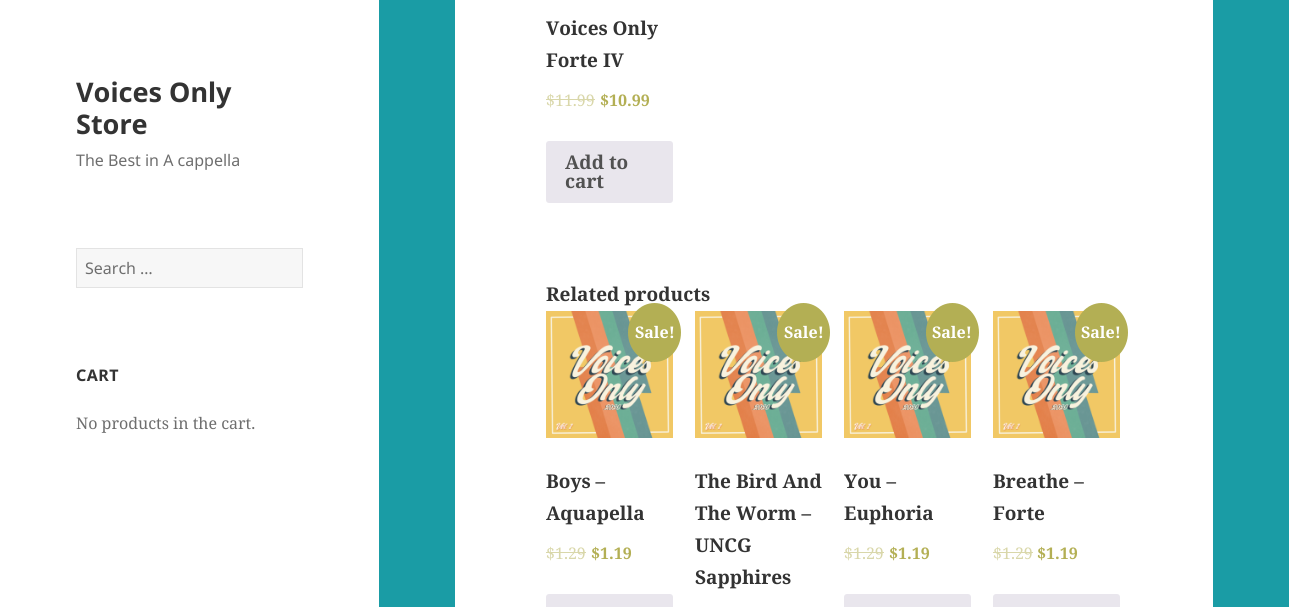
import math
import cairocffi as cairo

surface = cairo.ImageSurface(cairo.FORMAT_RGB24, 1289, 607)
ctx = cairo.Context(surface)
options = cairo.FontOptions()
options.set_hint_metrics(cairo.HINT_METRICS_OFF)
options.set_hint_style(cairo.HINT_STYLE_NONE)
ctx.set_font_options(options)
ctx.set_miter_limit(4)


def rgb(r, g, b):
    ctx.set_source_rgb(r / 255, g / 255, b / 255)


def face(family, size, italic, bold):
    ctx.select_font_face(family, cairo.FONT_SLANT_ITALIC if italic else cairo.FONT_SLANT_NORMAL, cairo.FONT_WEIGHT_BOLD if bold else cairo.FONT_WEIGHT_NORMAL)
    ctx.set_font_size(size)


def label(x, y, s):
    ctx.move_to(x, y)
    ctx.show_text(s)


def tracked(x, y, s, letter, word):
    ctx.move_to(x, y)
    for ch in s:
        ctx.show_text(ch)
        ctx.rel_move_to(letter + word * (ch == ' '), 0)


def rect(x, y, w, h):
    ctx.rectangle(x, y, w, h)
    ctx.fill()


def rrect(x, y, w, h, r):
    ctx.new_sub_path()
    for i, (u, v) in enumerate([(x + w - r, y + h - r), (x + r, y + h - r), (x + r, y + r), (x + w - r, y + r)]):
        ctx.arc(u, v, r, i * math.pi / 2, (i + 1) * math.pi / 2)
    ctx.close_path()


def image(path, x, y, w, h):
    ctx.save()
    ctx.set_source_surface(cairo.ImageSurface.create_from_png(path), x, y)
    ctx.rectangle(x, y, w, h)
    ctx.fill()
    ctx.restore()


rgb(26, 156, 165)
ctx.paint()
rgb(255, 255, 255)
rect(0, 0, 379, 607)
face('Noto Sans', 27, 0, 1)
rgb(51, 51, 51)
label(76, 102, 'Voices Only')
label(76, 134, 'Store')
face('Noto Sans', 16, 0, 0)
rgb(110, 110, 110)
label(76, 166, 'The Best in A cappella')
rgb(247, 247, 247)
ctx.rectangle(76.5, 248.5, 226, 39)
ctx.fill_preserve()
rgb(227, 227, 227)
ctx.set_line_width(1)
ctx.stroke()
rgb(110, 110, 110)
label(85, 274, 'Search …')
face('Noto Sans', 16, 0, 1)
rgb(51, 51, 51)
tracked(76, 381, 'CART', 0.5, 0)
face('Noto Serif', 16, 0, 0)
rgb(110, 110, 110)
label(76, 429, 'No products in the cart.')
rgb(255, 255, 255)
rect(455, 0, 758, 607)
face('Noto Serif', 19, 0, 1)
rgb(51, 51, 51)
label(546, 35, 'Voices Only')
label(546, 67, 'Forte IV')
face('Noto Serif', 16, 0, 0)
rgb(217, 215, 170)
label(546, 106, '$11.99')
rect(546, 99, 49, 1)
face('Noto Serif', 16, 0, 1)
rgb(179, 175, 84)
label(600, 106, '$10.99')
rgb(233, 230, 237)
rrect(546, 141, 127, 62, 3)
ctx.fill()
face('Noto Serif', 19, 0, 1)
rgb(81, 81, 81)
label(565, 169, 'Add to')
label(565, 188, 'cart')
rgb(51, 51, 51)
label(546, 301, 'Related products')
image('image0.png', 546, 311, 127, 127)
rgb(179, 175, 84)
ctx.new_path()
ctx.move_to(654.5, 303)
ctx.curve_to(669, 303, 681, 316, 681, 332.5)
ctx.curve_to(681, 349, 669, 362, 654.5, 362)
ctx.curve_to(640, 362, 628, 349, 628, 332.5)
ctx.curve_to(628, 316, 640, 303, 654.5, 303)
ctx.close_path()
ctx.fill()
face('Noto Serif', 16, 0, 1)
rgb(255, 255, 255)
label(635, 338, 'Sale!')
face('Noto Serif', 19, 0, 1)
rgb(51, 51, 51)
label(546, 488, 'Boys –')
label(546, 520, 'Aquapella')
face('Noto Serif', 16, 0, 0)
rgb(217, 215, 170)
label(546, 559, '$1.29')
rect(546, 552, 40, 1)
face('Noto Serif', 16, 0, 1)
rgb(179, 175, 84)
label(591, 559, '$1.19')
rgb(233, 230, 237)
rrect(546, 594, 127, 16, 3)
ctx.fill()
image('image1.png', 695, 311, 127, 127)
rgb(179, 175, 84)
ctx.new_path()
ctx.move_to(803.5, 303)
ctx.curve_to(818, 303, 830, 316, 830, 332.5)
ctx.curve_to(830, 349, 818, 362, 803.5, 362)
ctx.curve_to(789, 362, 777, 349, 777, 332.5)
ctx.curve_to(777, 316, 789, 303, 803.5, 303)
ctx.close_path()
ctx.fill()
rgb(255, 255, 255)
label(784, 338, 'Sale!')
face('Noto Serif', 19, 0, 1)
rgb(51, 51, 51)
label(695, 488, 'The Bird And')
label(695, 520, 'The Worm –')
label(695, 552, 'UNCG')
label(695, 584, 'Sapphires')
image('image0.png', 844, 311, 127, 127)
rgb(179, 175, 84)
ctx.new_path()
ctx.move_to(952.5, 303)
ctx.curve_to(967, 303, 979, 316, 979, 332.5)
ctx.curve_to(979, 349, 967, 362, 952.5, 362)
ctx.curve_to(938, 362, 926, 349, 926, 332.5)
ctx.curve_to(926, 316, 938, 303, 952.5, 303)
ctx.close_path()
ctx.fill()
face('Noto Serif', 16, 0, 1)
rgb(255, 255, 255)
label(932, 338, 'Sale!')
face('Noto Serif', 19, 0, 1)
rgb(51, 51, 51)
label(844, 488, 'You –')
label(844, 520, 'Euphoria')
face('Noto Serif', 16, 0, 0)
rgb(217, 215, 170)
label(844, 559, '$1.29')
rect(844, 552, 40, 1)
face('Noto Serif', 16, 0, 1)
rgb(179, 175, 84)
label(889, 559, '$1.19')
rgb(233, 230, 237)
rrect(844, 594, 127, 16, 3)
ctx.fill()
image('image0.png', 993, 311, 127, 127)
rgb(179, 175, 84)
ctx.new_path()
ctx.move_to(1101.5, 303)
ctx.curve_to(1116, 303, 1128, 316, 1128, 332.5)
ctx.curve_to(1128, 349, 1116, 362, 1101.5, 362)
ctx.curve_to(1087, 362, 1075, 349, 1075, 332.5)
ctx.curve_to(1075, 316, 1087, 303, 1101.5, 303)
ctx.close_path()
ctx.fill()
rgb(255, 255, 255)
label(1081, 338, 'Sale!')
face('Noto Serif', 19, 0, 1)
rgb(51, 51, 51)
label(993, 488, 'Breathe –')
label(993, 520, 'Forte')
face('Noto Serif', 16, 0, 0)
rgb(217, 215, 170)
label(993, 559, '$1.29')
rect(993, 552, 40, 1)
face('Noto Serif', 16, 0, 1)
rgb(179, 175, 84)
label(1037, 559, '$1.19')
rgb(233, 230, 237)
rrect(993, 594, 127, 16, 3)
ctx.fill()
surface.write_to_png('render.png')
